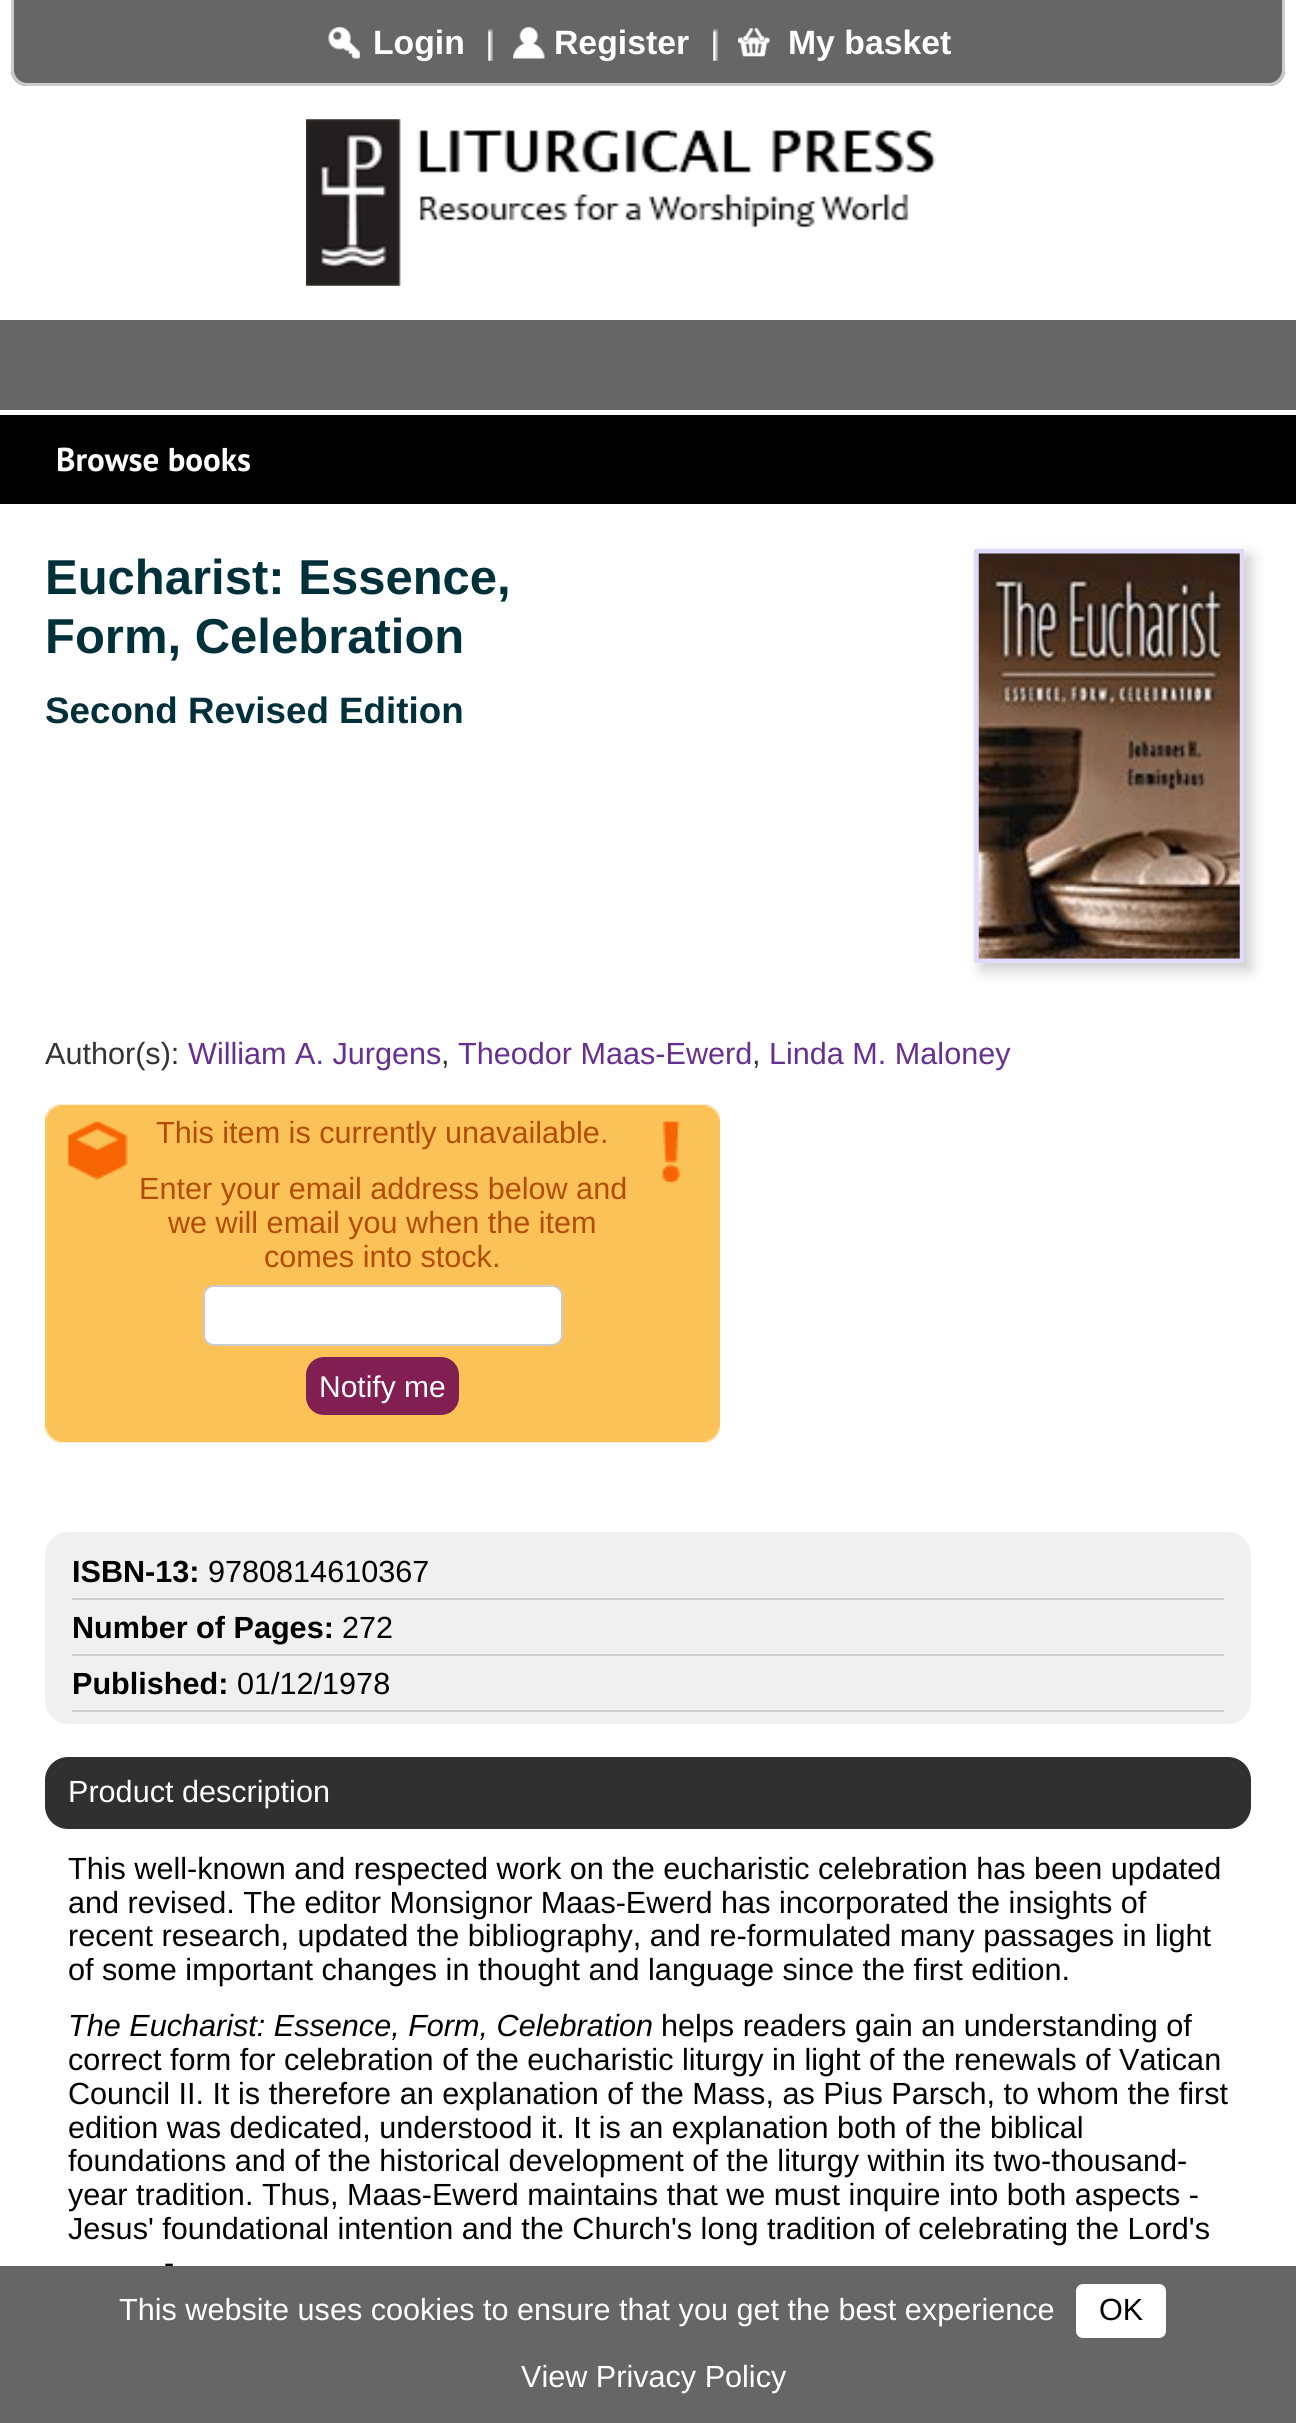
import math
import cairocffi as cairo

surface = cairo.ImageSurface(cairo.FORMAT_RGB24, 1296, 2423)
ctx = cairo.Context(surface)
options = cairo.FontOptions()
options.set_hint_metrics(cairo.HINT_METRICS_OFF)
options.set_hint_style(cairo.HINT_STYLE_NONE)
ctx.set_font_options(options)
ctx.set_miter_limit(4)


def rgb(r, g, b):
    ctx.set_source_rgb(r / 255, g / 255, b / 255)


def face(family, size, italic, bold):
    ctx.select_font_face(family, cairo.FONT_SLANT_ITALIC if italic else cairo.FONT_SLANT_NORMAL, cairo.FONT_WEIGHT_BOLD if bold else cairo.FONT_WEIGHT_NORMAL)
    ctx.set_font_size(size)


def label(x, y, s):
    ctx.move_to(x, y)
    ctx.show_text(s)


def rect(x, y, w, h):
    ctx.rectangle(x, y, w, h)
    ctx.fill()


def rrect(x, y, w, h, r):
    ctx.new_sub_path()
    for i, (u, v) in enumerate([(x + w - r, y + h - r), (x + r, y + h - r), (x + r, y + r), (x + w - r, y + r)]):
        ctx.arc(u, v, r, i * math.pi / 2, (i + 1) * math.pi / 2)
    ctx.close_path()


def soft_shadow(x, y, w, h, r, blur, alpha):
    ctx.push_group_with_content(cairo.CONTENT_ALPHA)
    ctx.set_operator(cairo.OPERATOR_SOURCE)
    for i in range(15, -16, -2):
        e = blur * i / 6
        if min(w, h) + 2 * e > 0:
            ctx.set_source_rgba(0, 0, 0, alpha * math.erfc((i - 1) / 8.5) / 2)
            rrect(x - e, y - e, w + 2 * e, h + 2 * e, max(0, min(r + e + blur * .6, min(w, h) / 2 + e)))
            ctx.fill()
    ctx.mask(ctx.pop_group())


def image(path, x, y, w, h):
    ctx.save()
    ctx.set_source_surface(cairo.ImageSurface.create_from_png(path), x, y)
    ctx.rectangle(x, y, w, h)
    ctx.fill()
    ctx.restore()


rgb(255, 255, 255)
ctx.paint()
rgb(102, 102, 102)
ctx.new_path()
ctx.move_to(11, -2)
ctx.line_to(1285, -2)
ctx.line_to(1285, 70)
ctx.curve_to(1285, 79, 1278, 86, 1269, 86)
ctx.line_to(27, 86)
ctx.curve_to(18, 86, 11, 79, 11, 70)
ctx.close_path()
ctx.fill()
rgb(204, 204, 204)
ctx.set_fill_rule(cairo.FILL_RULE_EVEN_ODD)
ctx.new_path()
ctx.move_to(11, -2)
ctx.line_to(1285, -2)
ctx.line_to(1285, 70)
ctx.curve_to(1285, 78, 1278, 86, 1269, 86)
ctx.line_to(27, 86)
ctx.curve_to(18, 86, 11, 78, 11, 70)
ctx.close_path()
ctx.move_to(14, -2)
ctx.line_to(1282, -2)
ctx.line_to(1282, 70)
ctx.curve_to(1282, 77, 1276, 83, 1269, 83)
ctx.line_to(27, 83)
ctx.curve_to(20, 83, 14, 77, 14, 70)
ctx.close_path()
ctx.fill()
image('image0.png', 328, 27, 32, 32)
face('Liberation Sans', 33.75, 0, 1)
rgb(255, 255, 255)
label(373, 54, 'Login')
image('image1.png', 488, 29, 5, 32)
image('image2.png', 513, 27, 32, 32)
label(554, 54, 'Register')
image('image3.png', 713, 29, 5, 32)
image('image4.png', 738, 28, 32, 29)
label(788, 54, 'My basket')
image('image5.png', 306, 119, 630, 167)
rgb(102, 102, 102)
rect(0, 320, 1296, 90)
rgb(0, 0, 0)
rect(0, 415, 1296, 89)
face('PT Sans', 33, 0, 1)
rgb(255, 255, 255)
label(56, 471, 'Browse books')
face('Liberation Sans', 49, 0, 1)
rgb(0, 48, 58)
label(45, 594, 'Eucharist: Essence,')
label(45, 653, 'Form, Celebration')
face('Liberation Sans', 36.75, 0, 1)
label(45, 723, 'Second Revised Edition')
rgb(204, 204, 204)
soft_shadow(981, 556, 270, 414, 0, 7, 1)
ctx.rectangle(976.5, 551.5, 265, 409)
rgb(224, 217, 250)
ctx.set_line_width(5)
ctx.stroke()
image('image6.png', 978, 553, 262, 406)
face('Liberation Sans', 30.6, 0, 0)
rgb(51, 51, 51)
label(45, 1064, 'Author(s):')
rgb(103, 47, 146)
label(188, 1064, 'William A. Jurgens')
rgb(51, 51, 51)
label(441, 1064, ',')
rgb(103, 47, 146)
label(458, 1064, 'Theodor Maas-Ewerd')
rgb(51, 51, 51)
label(752, 1064, ',')
rgb(103, 47, 146)
label(769, 1064, 'Linda M. Maloney')
rgb(251, 195, 87)
rect(45, 1183, 675, 244)
image('image7.png', 45, 1104, 675, 80)
rgb(181, 76, 6)
label(156, 1143, 'This item is currently unavailable.')
label(139, 1199, 'Enter your email address below and')
label(168, 1233, 'we will email you when the item')
label(264, 1267, 'comes into stock.')
rgb(255, 255, 255)
rrect(204, 1286, 358, 59, 10)
ctx.fill_preserve()
rgb(204, 204, 204)
ctx.set_line_width(2)
ctx.stroke()
rgb(129, 31, 82)
rrect(306, 1357, 153, 58, 18)
ctx.fill()
face('Liberation Sans', 30, 0, 0)
rgb(255, 255, 255)
label(319, 1397, 'Notify me')
image('image8.png', 45, 1426, 675, 17)
rgb(240, 240, 240)
rrect(45, 1532, 1206, 192, 23)
ctx.fill()
rgb(204, 204, 204)
rect(72, 1598, 1152, 2)
face('Liberation Sans', 30.6, 0, 1)
rgb(0, 0, 0)
label(72, 1582, 'ISBN-13:')
face('Liberation Sans', 30.6, 0, 0)
label(208, 1582, '9780814610367')
rgb(204, 204, 204)
rect(72, 1654, 1152, 2)
face('Liberation Sans', 30.6, 0, 1)
rgb(0, 0, 0)
label(72, 1638, 'Number of Pages:')
face('Liberation Sans', 30.6, 0, 0)
label(342, 1638, '272')
rgb(204, 204, 204)
rect(72, 1710, 1152, 2)
face('Liberation Sans', 30.6, 0, 1)
rgb(0, 0, 0)
label(72, 1694, 'Published:')
face('Liberation Sans', 30.6, 0, 0)
label(237, 1694, '01/12/1978')
rgb(48, 48, 48)
rrect(45, 1757, 1206, 72, 23)
ctx.fill()
rgb(255, 255, 255)
label(68, 1802, 'Product description')
rgb(0, 0, 0)
label(68, 1879, 'This well-known and respected work on the eucharistic celebration has been updated')
label(68, 1913, 'and revised. The editor Monsignor Maas-Ewerd has incorporated the insights of')
label(68, 1946, 'recent research, updated the bibliography, and re-formulated many passages in light')
label(68, 1980, 'of some important changes in thought and language since the first edition.')
face('Liberation Sans', 30.6, 1, 0)
label(68, 2036, 'The Eucharist: Essence, Form, Celebration')
face('Liberation Sans', 30.6, 0, 0)
label(661, 2036, 'helps readers gain an understanding of')
label(68, 2070, 'correct form for celebration of the eucharistic liturgy in light of the renewals of Vatican')
label(68, 2104, 'Council II. It is therefore an explanation of the Mass, as Pius Parsch, to whom the first')
label(68, 2138, 'edition was dedicated, understood it. It is an explanation both of the biblical')
label(68, 2171, 'foundations and of the historical development of the liturgy within its two-thousand-')
label(68, 2205, 'year tradition. Thus, Maas-Ewerd maintains that we must inquire into both aspects -')
label(68, 2239, 'Jesus\' foundational intention and the Church\'s long tradition of celebrating the Lord\'s')
label(164, 2273, '-')
rgb(102, 102, 102)
rect(0, 2266, 1296, 157)
rgb(255, 255, 255)
label(119, 2320, 'This website uses cookies to ensure that you get the best experience')
rrect(1076, 2284, 90, 54, 7)
ctx.fill()
rgb(0, 0, 0)
label(1099, 2320, 'OK')
rgb(255, 255, 255)
label(521, 2387, 'View Privacy Policy')
surface.write_to_png('render.png')
